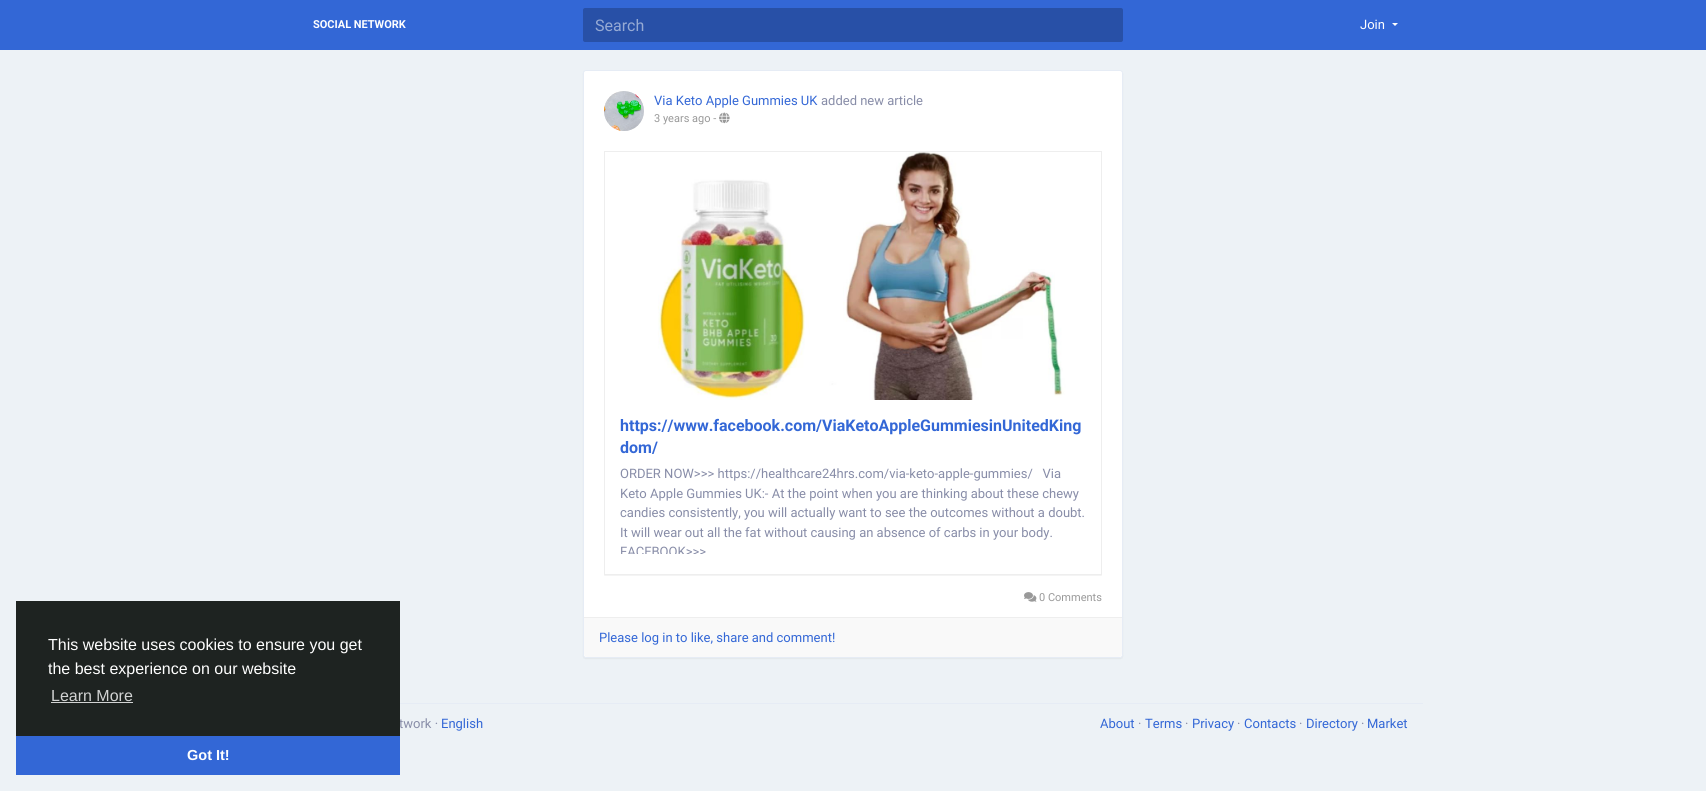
import math
import cairocffi as cairo

surface = cairo.ImageSurface(cairo.FORMAT_RGB24, 1706, 791)
ctx = cairo.Context(surface)
options = cairo.FontOptions()
options.set_hint_metrics(cairo.HINT_METRICS_OFF)
options.set_hint_style(cairo.HINT_STYLE_NONE)
ctx.set_font_options(options)
ctx.set_miter_limit(4)


def rgb(r, g, b):
    ctx.set_source_rgb(r / 255, g / 255, b / 255)


def face(family, size, italic, bold):
    ctx.select_font_face(family, cairo.FONT_SLANT_ITALIC if italic else cairo.FONT_SLANT_NORMAL, cairo.FONT_WEIGHT_BOLD if bold else cairo.FONT_WEIGHT_NORMAL)
    ctx.set_font_size(size)


def label(x, y, s):
    ctx.move_to(x, y)
    ctx.show_text(s)


def rect(x, y, w, h):
    ctx.rectangle(x, y, w, h)
    ctx.fill()


def rrect(x, y, w, h, r):
    ctx.new_sub_path()
    for i, (u, v) in enumerate([(x + w - r, y + h - r), (x + r, y + h - r), (x + r, y + r), (x + w - r, y + r)]):
        ctx.arc(u, v, r, i * math.pi / 2, (i + 1) * math.pi / 2)
    ctx.close_path()


def soft_shadow(x, y, w, h, r, blur, alpha):
    ctx.push_group_with_content(cairo.CONTENT_ALPHA)
    ctx.set_operator(cairo.OPERATOR_SOURCE)
    for i in range(15, -16, -2):
        e = blur * i / 6
        if min(w, h) + 2 * e > 0:
            ctx.set_source_rgba(0, 0, 0, alpha * math.erfc((i - 1) / 8.5) / 2)
            rrect(x - e, y - e, w + 2 * e, h + 2 * e, max(0, min(r + e + blur * .6, min(w, h) / 2 + e)))
            ctx.fill()
    ctx.mask(ctx.pop_group())


def image(path, x, y, w, h):
    ctx.save()
    ctx.set_source_surface(cairo.ImageSurface.create_from_png(path), x, y)
    ctx.rectangle(x, y, w, h)
    ctx.fill()
    ctx.restore()


rgb(237, 242, 246)
ctx.paint()
face('Roboto', 13, 0, 0)
rgb(136, 141, 168)
label(399, 728, 'twork ·')
rgb(30, 35, 33)
rect(16, 601, 384, 135)
face('Liberation Sans', 16, 0, 0)
rgb(255, 255, 255)
label(48, 650, 'This website uses cookies to ensure you get')
label(48, 674, 'the best experience on our website')
rgb(210, 211, 211)
label(51, 701, 'Learn More')
rect(51, 702, 82, 1)
rgb(51, 103, 214)
rect(16, 736, 384, 39)
face('Liberation Sans', 14.5, 0, 1)
rgb(255, 255, 255)
label(187, 760, 'Got It!')
rgb(51, 103, 214)
rect(0, 0, 1706, 50)
face('Roboto', 11, 0, 1)
rgb(255, 255, 255)
label(313, 28, 'SOCIAL NETWORK')
rgb(40, 80, 167)
rrect(583, 8, 540, 34, 2)
ctx.fill()
face('Roboto', 16, 0, 0)
rgb(150, 170, 212)
label(595, 31, 'Search')
face('Roboto', 13, 0, 0)
rgb(255, 255, 255)
label(1360, 29, 'Join')
ctx.new_path()
ctx.move_to(1392, 23)
ctx.line_to(1398, 23)
ctx.line_to(1395, 26)
ctx.close_path()
ctx.fill()
rgb(0, 0, 0)
soft_shadow(583, 71, 540, 588, 3, 0.5, 0.05)
rgb(255, 255, 255)
rrect(583.5, 70.5, 539, 587, 2.5)
ctx.fill_preserve()
rgb(230, 236, 245)
ctx.set_line_width(1)
ctx.stroke()
rgb(238, 238, 238)
ctx.arc(624, 111, 20, 0, 2 * math.pi)
ctx.fill()
image('image0.png', 604, 91, 40, 40)
rgb(51, 103, 214)
label(654, 105, 'Via Keto Apple Gummies UK')
rgb(136, 141, 168)
label(821, 105, 'added new article')
face('Roboto', 11, 0, 0)
rgb(153, 153, 153)
label(654, 122, '3 years ago -')
image('image1.png', 719, 112, 11, 12)
ctx.save()
ctx.rectangle(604, 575, 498, 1)
ctx.clip()
rgb(0, 0, 0)
soft_shadow(604, 152, 498, 424, 0, 0.5, 0.05)
ctx.restore()
ctx.rectangle(604.5, 151.5, 497, 423)
rgb(238, 238, 238)
ctx.stroke()
image('image2.png', 605, 152, 496, 248)
face('Roboto', 16, 0, 1)
rgb(51, 103, 214)
label(620, 431, 'https://www.facebook.com/ViaKetoAppleGummiesinUnitedKing')
label(620, 453, 'dom/')
face('Roboto', 13, 0, 0)
rgb(136, 141, 168)
label(620, 478, 'ORDER NOW>>> https://healthcare24hrs.com/via-keto-apple-gummies/   Via')
label(620, 498, 'Keto Apple Gummies UK:- At the point when you are thinking about these chewy')
label(620, 517, 'candies consistently, you will actually want to see the outcomes without a doubt.')
label(620, 537, 'It will wear out all the fat without causing an absence of carbs in your body.')
ctx.save()
ctx.rectangle(620, 464, 466, 90)
ctx.clip()
label(620, 556, 'FACEBOOK>>>')
ctx.restore()
image('image3.png', 1024, 592, 13, 10)
face('Roboto', 11, 0, 0)
rgb(153, 153, 153)
label(1039, 601, '0 Comments')
rgb(249, 249, 249)
ctx.new_path()
ctx.move_to(584, 617)
ctx.line_to(1122, 617)
ctx.line_to(1122, 654)
ctx.curve_to(1122, 655.5, 1120.5, 657, 1119, 657)
ctx.line_to(587, 657)
ctx.curve_to(585.5, 657, 584, 655.5, 584, 654)
ctx.close_path()
ctx.fill()
rgb(238, 238, 238)
rect(584, 617, 538, 1)
face('Roboto', 13, 0, 0)
rgb(51, 103, 214)
label(599, 642, 'Please log in to like, share and comment!')
rgb(230, 236, 245)
rect(400, 703, 1023, 1)
rgb(51, 103, 214)
label(441, 728, 'English')
label(1100, 728, 'About')
rgb(136, 141, 168)
label(1138, 728, '·')
rgb(51, 103, 214)
label(1145, 728, 'Terms')
rgb(136, 141, 168)
label(1185, 728, '·')
rgb(51, 103, 214)
label(1192, 728, 'Privacy')
rgb(136, 141, 168)
label(1237, 728, '·')
rgb(51, 103, 214)
label(1244, 728, 'Contacts')
rgb(136, 141, 168)
label(1299, 728, '·')
rgb(51, 103, 214)
label(1306, 728, 'Directory')
rgb(136, 141, 168)
label(1361, 728, '·')
rgb(51, 103, 214)
label(1367, 728, 'Market')
surface.write_to_png('render.png')
